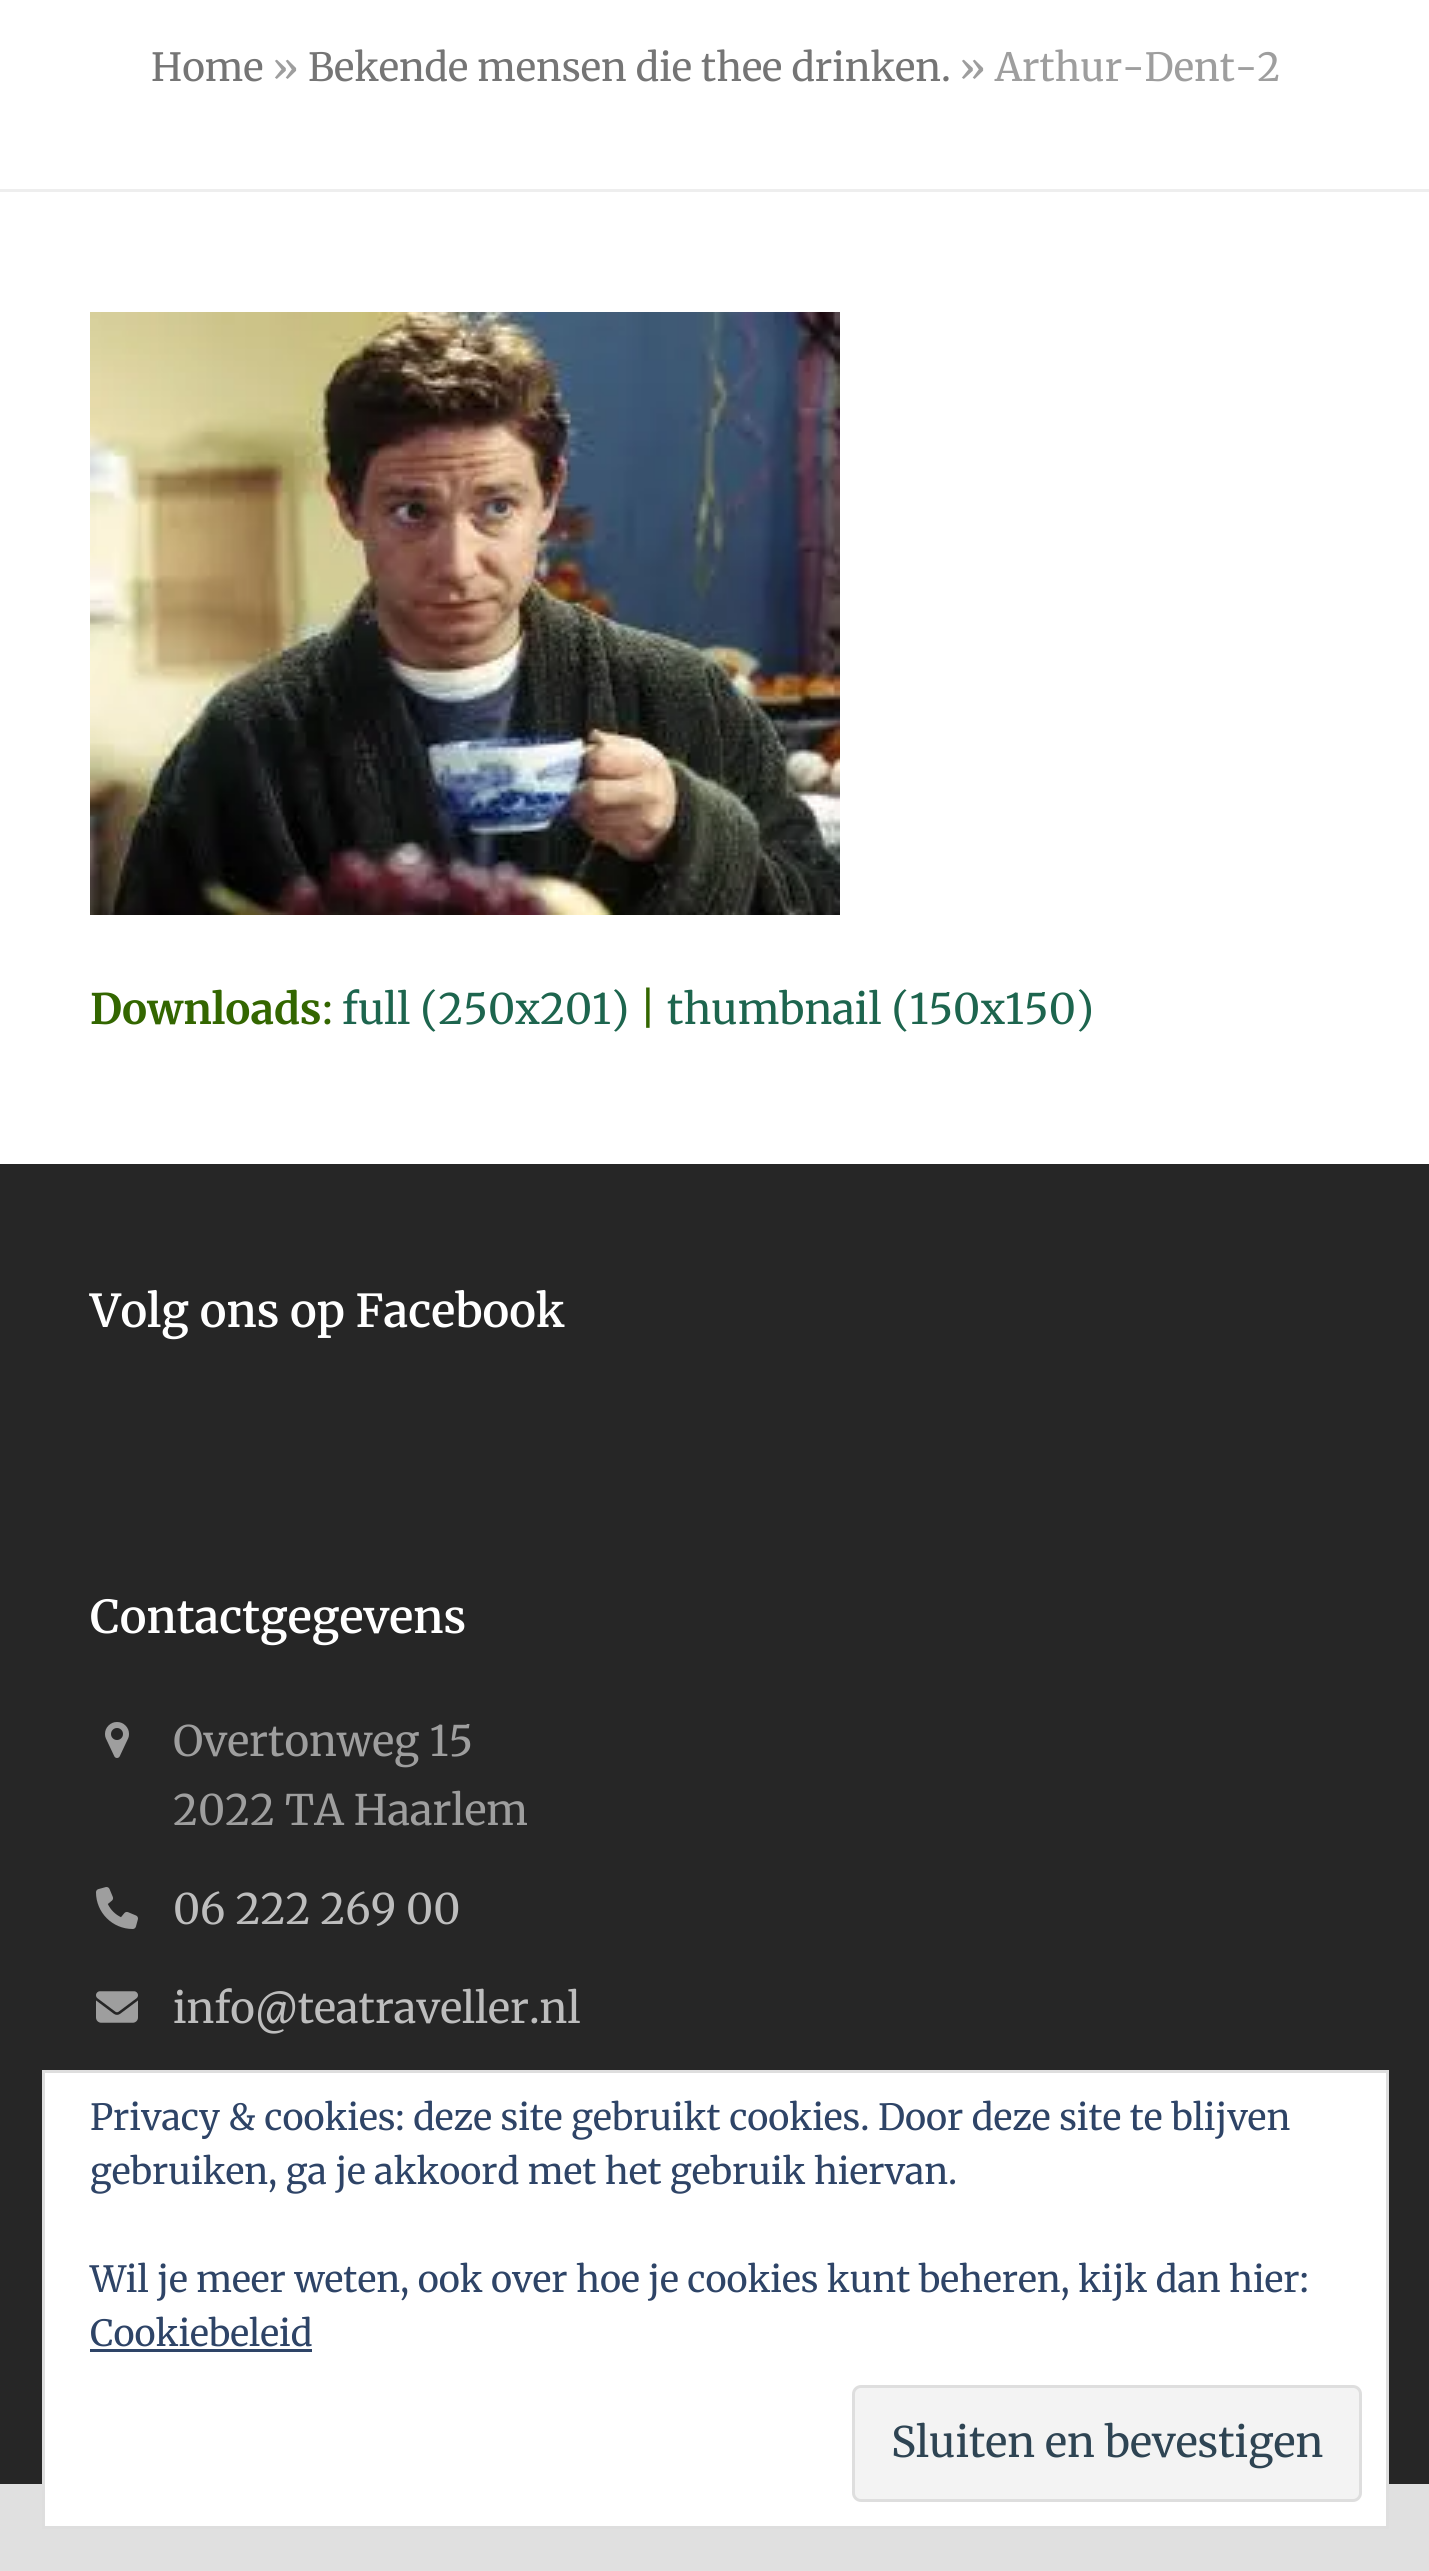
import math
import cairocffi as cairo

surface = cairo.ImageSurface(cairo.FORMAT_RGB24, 1429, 2571)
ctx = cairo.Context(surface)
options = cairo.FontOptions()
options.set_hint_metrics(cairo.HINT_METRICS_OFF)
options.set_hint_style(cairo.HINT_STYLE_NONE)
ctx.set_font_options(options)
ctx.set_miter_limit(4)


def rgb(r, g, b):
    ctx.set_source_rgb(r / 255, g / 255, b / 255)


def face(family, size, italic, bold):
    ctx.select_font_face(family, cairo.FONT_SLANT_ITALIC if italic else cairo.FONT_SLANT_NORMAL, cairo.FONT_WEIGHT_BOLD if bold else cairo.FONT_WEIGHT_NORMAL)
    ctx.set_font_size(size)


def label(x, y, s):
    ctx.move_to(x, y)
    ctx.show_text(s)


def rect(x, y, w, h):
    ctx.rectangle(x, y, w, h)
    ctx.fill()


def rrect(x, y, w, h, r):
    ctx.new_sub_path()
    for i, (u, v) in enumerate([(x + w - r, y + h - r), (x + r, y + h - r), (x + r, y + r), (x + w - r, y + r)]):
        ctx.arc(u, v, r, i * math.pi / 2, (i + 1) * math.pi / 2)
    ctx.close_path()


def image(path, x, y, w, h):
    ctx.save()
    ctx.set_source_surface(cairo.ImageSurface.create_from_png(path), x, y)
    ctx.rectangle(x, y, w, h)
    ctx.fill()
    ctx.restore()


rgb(224, 224, 224)
ctx.paint()
rgb(255, 255, 255)
rect(0, 0, 1429, 1164)
rgb(238, 238, 238)
rect(0, 189, 1429, 3)
face('Merriweather', 38.75, 0, 0)
rgb(117, 117, 117)
label(151, 81, 'Home')
rgb(158, 158, 158)
label(272, 81, '»')
rgb(117, 117, 117)
label(308, 81, 'Bekende mensen die thee drinken.')
rgb(158, 158, 158)
label(959, 81, '» Arthur-Dent-2')
image('image0.png', 90, 312, 750, 603)
face('Merriweather', 42, 0, 1)
rgb(51, 102, 0)
label(90, 1024, 'Downloads')
face('Merriweather', 42, 0, 0)
label(322, 1024, ':')
rgb(29, 101, 78)
label(342, 1024, 'full (250x201)')
rgb(51, 102, 0)
label(639, 1024, '|')
rgb(29, 101, 78)
label(667, 1024, 'thumbnail (150x150)')
rgb(38, 38, 38)
rect(0, 1164, 1429, 1320)
face('Merriweather SemiBold', 45.25, 0, 0)
rgb(255, 255, 255)
label(90, 1327, 'Volg ons op Facebook')
label(90, 1633, 'Contactgegevens')
image('image1.png', 105, 1722, 24, 36)
face('Merriweather', 42, 0, 0)
rgb(158, 158, 158)
label(173, 1756, 'Overtonweg 15')
label(173, 1825, '2022 TA Haarlem')
image('image2.png', 96, 1887, 42, 42)
rgb(189, 189, 189)
label(173, 1924, '06 222 269 00')
image('image3.png', 96, 1991, 42, 32)
label(173, 2023, 'info@teatraveller.nl')
rgb(255, 255, 255)
ctx.rectangle(43.5, 2071.5, 1344, 456)
ctx.fill_preserve()
rgb(222, 222, 222)
ctx.set_line_width(3)
ctx.stroke()
face('Merriweather', 36, 0, 0)
rgb(46, 68, 103)
label(90, 2130, 'Privacy & cookies: deze site gebruikt cookies. Door deze site te blijven')
label(90, 2184, 'gebruiken, ga je akkoord met het gebruik hiervan.')
label(90, 2292, 'Wil je meer weten, ook over hoe je cookies kunt beheren, kijk dan hier:')
label(90, 2346, 'Cookiebeleid')
rect(90, 2349, 222, 3)
rgb(243, 243, 243)
rrect(853.5, 2386.5, 507, 114, 7.5)
ctx.fill_preserve()
rgb(222, 222, 222)
ctx.stroke()
face('Merriweather', 42, 0, 0)
rgb(46, 68, 83)
label(891, 2457, 'Sluiten en bevestigen')
surface.write_to_png('render.png')
